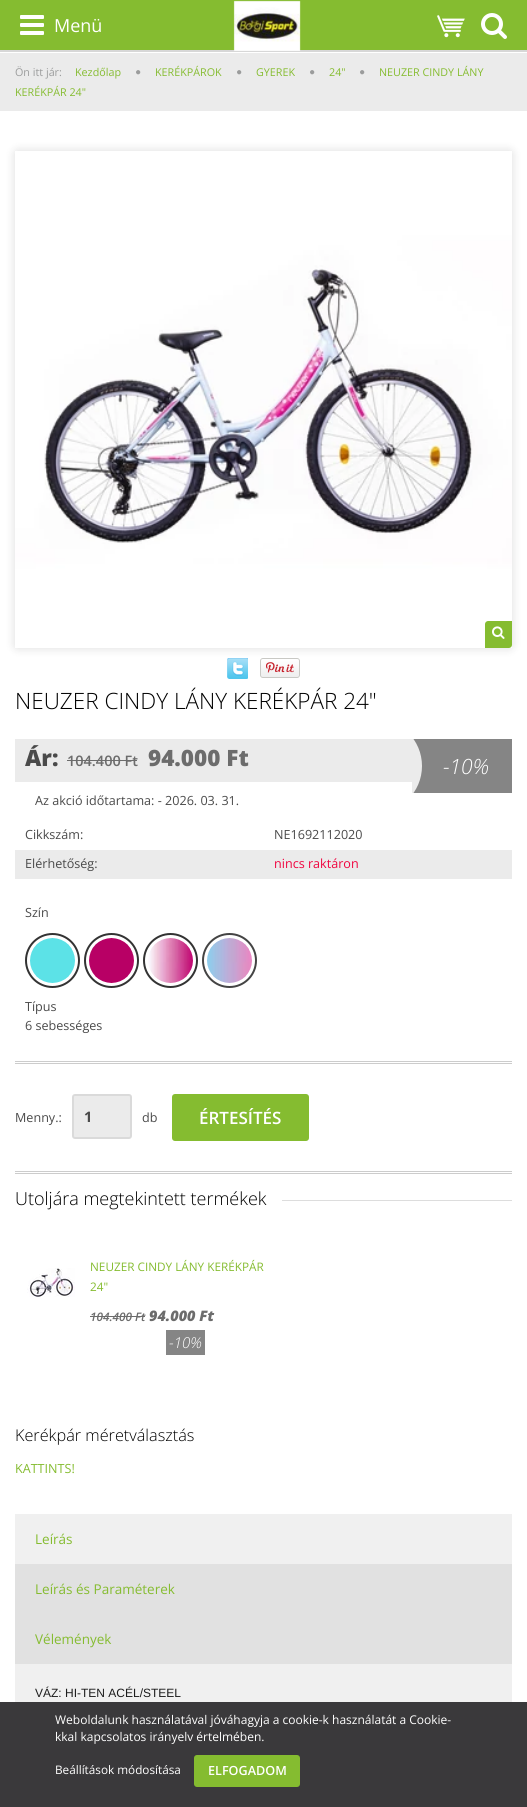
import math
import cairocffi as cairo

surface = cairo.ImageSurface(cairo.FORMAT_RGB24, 527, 1807)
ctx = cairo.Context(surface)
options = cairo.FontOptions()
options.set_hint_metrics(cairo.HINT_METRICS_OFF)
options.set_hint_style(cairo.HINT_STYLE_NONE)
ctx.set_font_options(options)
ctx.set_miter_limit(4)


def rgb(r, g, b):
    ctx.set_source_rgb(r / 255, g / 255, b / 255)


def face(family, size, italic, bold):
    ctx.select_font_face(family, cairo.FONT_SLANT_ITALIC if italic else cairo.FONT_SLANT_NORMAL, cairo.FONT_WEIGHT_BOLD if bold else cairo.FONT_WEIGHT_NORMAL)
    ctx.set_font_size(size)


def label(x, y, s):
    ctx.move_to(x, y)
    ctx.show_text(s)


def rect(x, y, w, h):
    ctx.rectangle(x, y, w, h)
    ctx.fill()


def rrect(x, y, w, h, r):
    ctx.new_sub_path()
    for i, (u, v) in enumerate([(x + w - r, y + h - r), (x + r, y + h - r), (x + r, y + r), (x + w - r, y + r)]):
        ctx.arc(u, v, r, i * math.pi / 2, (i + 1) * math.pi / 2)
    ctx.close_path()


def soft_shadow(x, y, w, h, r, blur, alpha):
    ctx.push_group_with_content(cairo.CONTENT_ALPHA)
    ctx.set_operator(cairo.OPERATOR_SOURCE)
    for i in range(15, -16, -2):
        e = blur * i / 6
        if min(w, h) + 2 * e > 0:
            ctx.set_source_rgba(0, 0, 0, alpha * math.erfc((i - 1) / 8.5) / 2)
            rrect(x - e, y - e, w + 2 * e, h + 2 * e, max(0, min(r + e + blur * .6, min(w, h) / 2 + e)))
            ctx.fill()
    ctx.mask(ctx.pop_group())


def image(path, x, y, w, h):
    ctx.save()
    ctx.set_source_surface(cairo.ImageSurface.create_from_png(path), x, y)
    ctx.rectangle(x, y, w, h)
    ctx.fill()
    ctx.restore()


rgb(255, 255, 255)
ctx.paint()
rgb(133, 188, 48)
rect(0, 0, 527, 50)
image('image0.png', 20, 15, 24, 20)
face('Open Sans', 18, 0, 0)
rgb(255, 255, 255)
label(54, 32, 'Menü')
rgb(215, 215, 215)
rect(0, 50, 527, 2)
image('image1.png', 233, 0, 68, 51)
image('image2.png', 437, 15, 28, 23)
image('image3.png', 481, 13, 26, 26)
rgb(235, 235, 235)
rect(0, 53, 527, 58)
face('Open Sans', 10.75, 0, 0)
rgb(155, 156, 156)
label(15, 76, 'Ön itt jár:')
rgb(133, 188, 48)
label(75, 76, 'Kezdőlap')
image('image4.png', 136, 70, 5, 5)
label(155, 76, 'KERÉKPÁROK')
image('image4.png', 237, 70, 5, 5)
label(256, 76, 'GYEREK')
image('image4.png', 310, 70, 5, 5)
label(329, 76, '24"')
image('image4.png', 360, 70, 5, 5)
label(379, 76, 'NEUZER CINDY LÁNY')
label(15, 96, 'KERÉKPÁR 24"')
rgb(0, 0, 0)
soft_shadow(13, 149, 501, 501, 5, 4, 0.1)
image('image5.png', 15, 151, 497, 497)
rgb(133, 188, 48)
ctx.new_path()
ctx.move_to(488, 621)
ctx.line_to(512, 621)
ctx.line_to(512, 645)
ctx.curve_to(512, 646.5, 510.5, 648, 509, 648)
ctx.line_to(485, 648)
ctx.line_to(485, 624)
ctx.curve_to(485, 622.5, 486.5, 621, 488, 621)
ctx.close_path()
ctx.fill()
image('image6.png', 492, 626, 13, 13)
image('image7.png', 227, 658, 21, 21)
image('image8.png', 260, 658, 40, 20)
face('Open Sans Light', 22.5, 0, 0)
rgb(0, 0, 0)
label(15, 709, 'NEUZER CINDY LÁNY KERÉKPÁR 24"')
rgb(235, 235, 235)
rect(15, 739, 397, 43)
face('Open Sans ExtraBold', 22.5, 0, 0)
rgb(74, 74, 74)
label(25, 766, 'Ár:')
face('Open Sans SemiBold', 14.5, 0, 0)
rgb(108, 108, 108)
label(67, 766, '104.400 Ft')
rect(67, 760, 70, 1)
face('Open Sans ExtraBold', 22.5, 0, 0)
label(148, 766, '94.000 Ft')
rgb(133, 133, 133)
rect(413, 739, 99, 54)
ctx.save()
ctx.rectangle(412, 739, 100, 54)
ctx.clip()
rgb(235, 235, 235)
ctx.arc(375, 766, 47, 0, 2 * math.pi)
ctx.fill()
ctx.restore()
face('Open Sans Light', 21, 1, 0)
rgb(255, 255, 255)
label(443, 774, '-10%')
face('Open Sans', 12.6, 0, 0)
rgb(74, 74, 74)
label(35, 805, 'Az akció időtartama: - 2026. 03. 31.')
label(25, 839, 'Cikkszám:')
label(274, 839, 'NE1692112020')
rgb(235, 235, 235)
rect(15, 850, 497, 29)
rgb(74, 74, 74)
label(25, 868, 'Elérhetőség:')
rgb(240, 5, 64)
label(274, 868, 'nincs raktáron')
rgb(74, 74, 74)
label(25, 917, 'Szín')
ctx.new_path()
ctx.arc(52.5, 960.5, 26.5, 0, 2 * math.pi)
rgb(51, 51, 51)
ctx.stroke()
image('image9.png', 30, 938, 45, 45)
ctx.arc(111.5, 960.5, 26.5, 0, 2 * math.pi)
ctx.stroke()
image('image10.png', 89, 938, 45, 45)
ctx.arc(170.5, 960.5, 26.5, 0, 2 * math.pi)
ctx.stroke()
image('image11.png', 148, 938, 45, 45)
ctx.arc(229.5, 960.5, 26.5, 0, 2 * math.pi)
rgb(68, 68, 68)
ctx.stroke()
image('image12.png', 207, 938, 45, 45)
rgb(74, 74, 74)
label(25, 1011, 'Típus')
label(25, 1030, '6 sebességes')
rgb(204, 204, 204)
rect(15, 1061, 497, 1)
rect(15, 1063, 497, 1)
rect(15, 1171, 497, 1)
rect(15, 1173, 497, 1)
rgb(74, 74, 74)
label(15, 1122, 'Menny.:')
rgb(235, 235, 235)
rrect(73, 1095, 58, 43, 2)
ctx.fill_preserve()
rgb(218, 218, 218)
ctx.stroke()
face('Open Sans', 14.5, 0, 1)
rgb(74, 74, 74)
label(84, 1122, '1')
face('Open Sans', 12.6, 0, 0)
label(142, 1122, 'db')
rgb(133, 188, 48)
rrect(173, 1095, 135, 45, 2)
ctx.fill_preserve()
ctx.stroke()
face('Open Sans SemiBold', 17, 0, 0)
rgb(255, 255, 255)
label(199, 1124, 'ÉRTESÍTÉS')
face('Open Sans Light', 18, 0, 0)
rgb(0, 0, 0)
label(15, 1205, 'Utoljára megtekintett termékek')
rgb(221, 221, 221)
rect(282, 1200, 230, 1)
image('image13.png', 27, 1268, 48, 29)
face('Open Sans', 11.75, 0, 0)
rgb(133, 188, 48)
label(90, 1271, 'NEUZER CINDY LÁNY KERÉKPÁR')
label(90, 1291, '24"')
face('Open Sans SemiBold', 11.75, 1, 0)
rgb(108, 108, 108)
label(90, 1321, '104.400 Ft')
rect(90, 1316, 55, 1)
face('Open Sans ExtraBold', 14.5, 1, 0)
label(149, 1321, '94.000 Ft')
rgb(133, 133, 133)
rect(166, 1330, 39, 25)
face('Open Sans Light', 15, 1, 0)
rgb(255, 255, 255)
label(169, 1348, '-10%')
face('Open Sans Light', 16.25, 0, 0)
rgb(0, 0, 0)
label(15, 1441, 'Kerékpár méretválasztás')
face('Open Sans', 12.6, 0, 0)
rgb(133, 188, 48)
label(15, 1473, 'KATTINTS!')
rgb(225, 225, 225)
rect(15, 1564, 497, 100)
rgb(240, 240, 240)
rect(15, 1514, 497, 50)
face('Open Sans', 13.5, 0, 0)
rgb(133, 188, 48)
label(35, 1544, 'Leírás')
label(35, 1594, 'Leírás és Paraméterek')
label(35, 1644, 'Vélemények')
rgb(240, 240, 240)
rect(15, 1664, 497, 38)
face('Liberation Sans', 12, 0, 0)
rgb(28, 28, 28)
label(35, 1697, 'VÁZ: HI-TEN ACÉL/STEEL')
rgb(58, 57, 59)
rect(0, 1702, 527, 105)
face('Open Sans', 12, 0, 0)
rgb(255, 255, 255)
label(55, 1724, 'Weboldalunk használatával jóváhagyja a cookie-k használatát a Cookie-')
label(55, 1741, 'kkal kapcsolatos irányelv értelmében.')
face('Open Sans', 11.75, 0, 0)
label(55, 1774, 'Beállítások módosítása')
rgb(133, 188, 48)
rrect(195, 1756, 104, 30, 2)
ctx.fill_preserve()
ctx.stroke()
face('Open Sans SemiBold', 12.6, 0, 0)
rgb(255, 255, 255)
label(208, 1775, 'ELFOGADOM')
surface.write_to_png('render.png')
